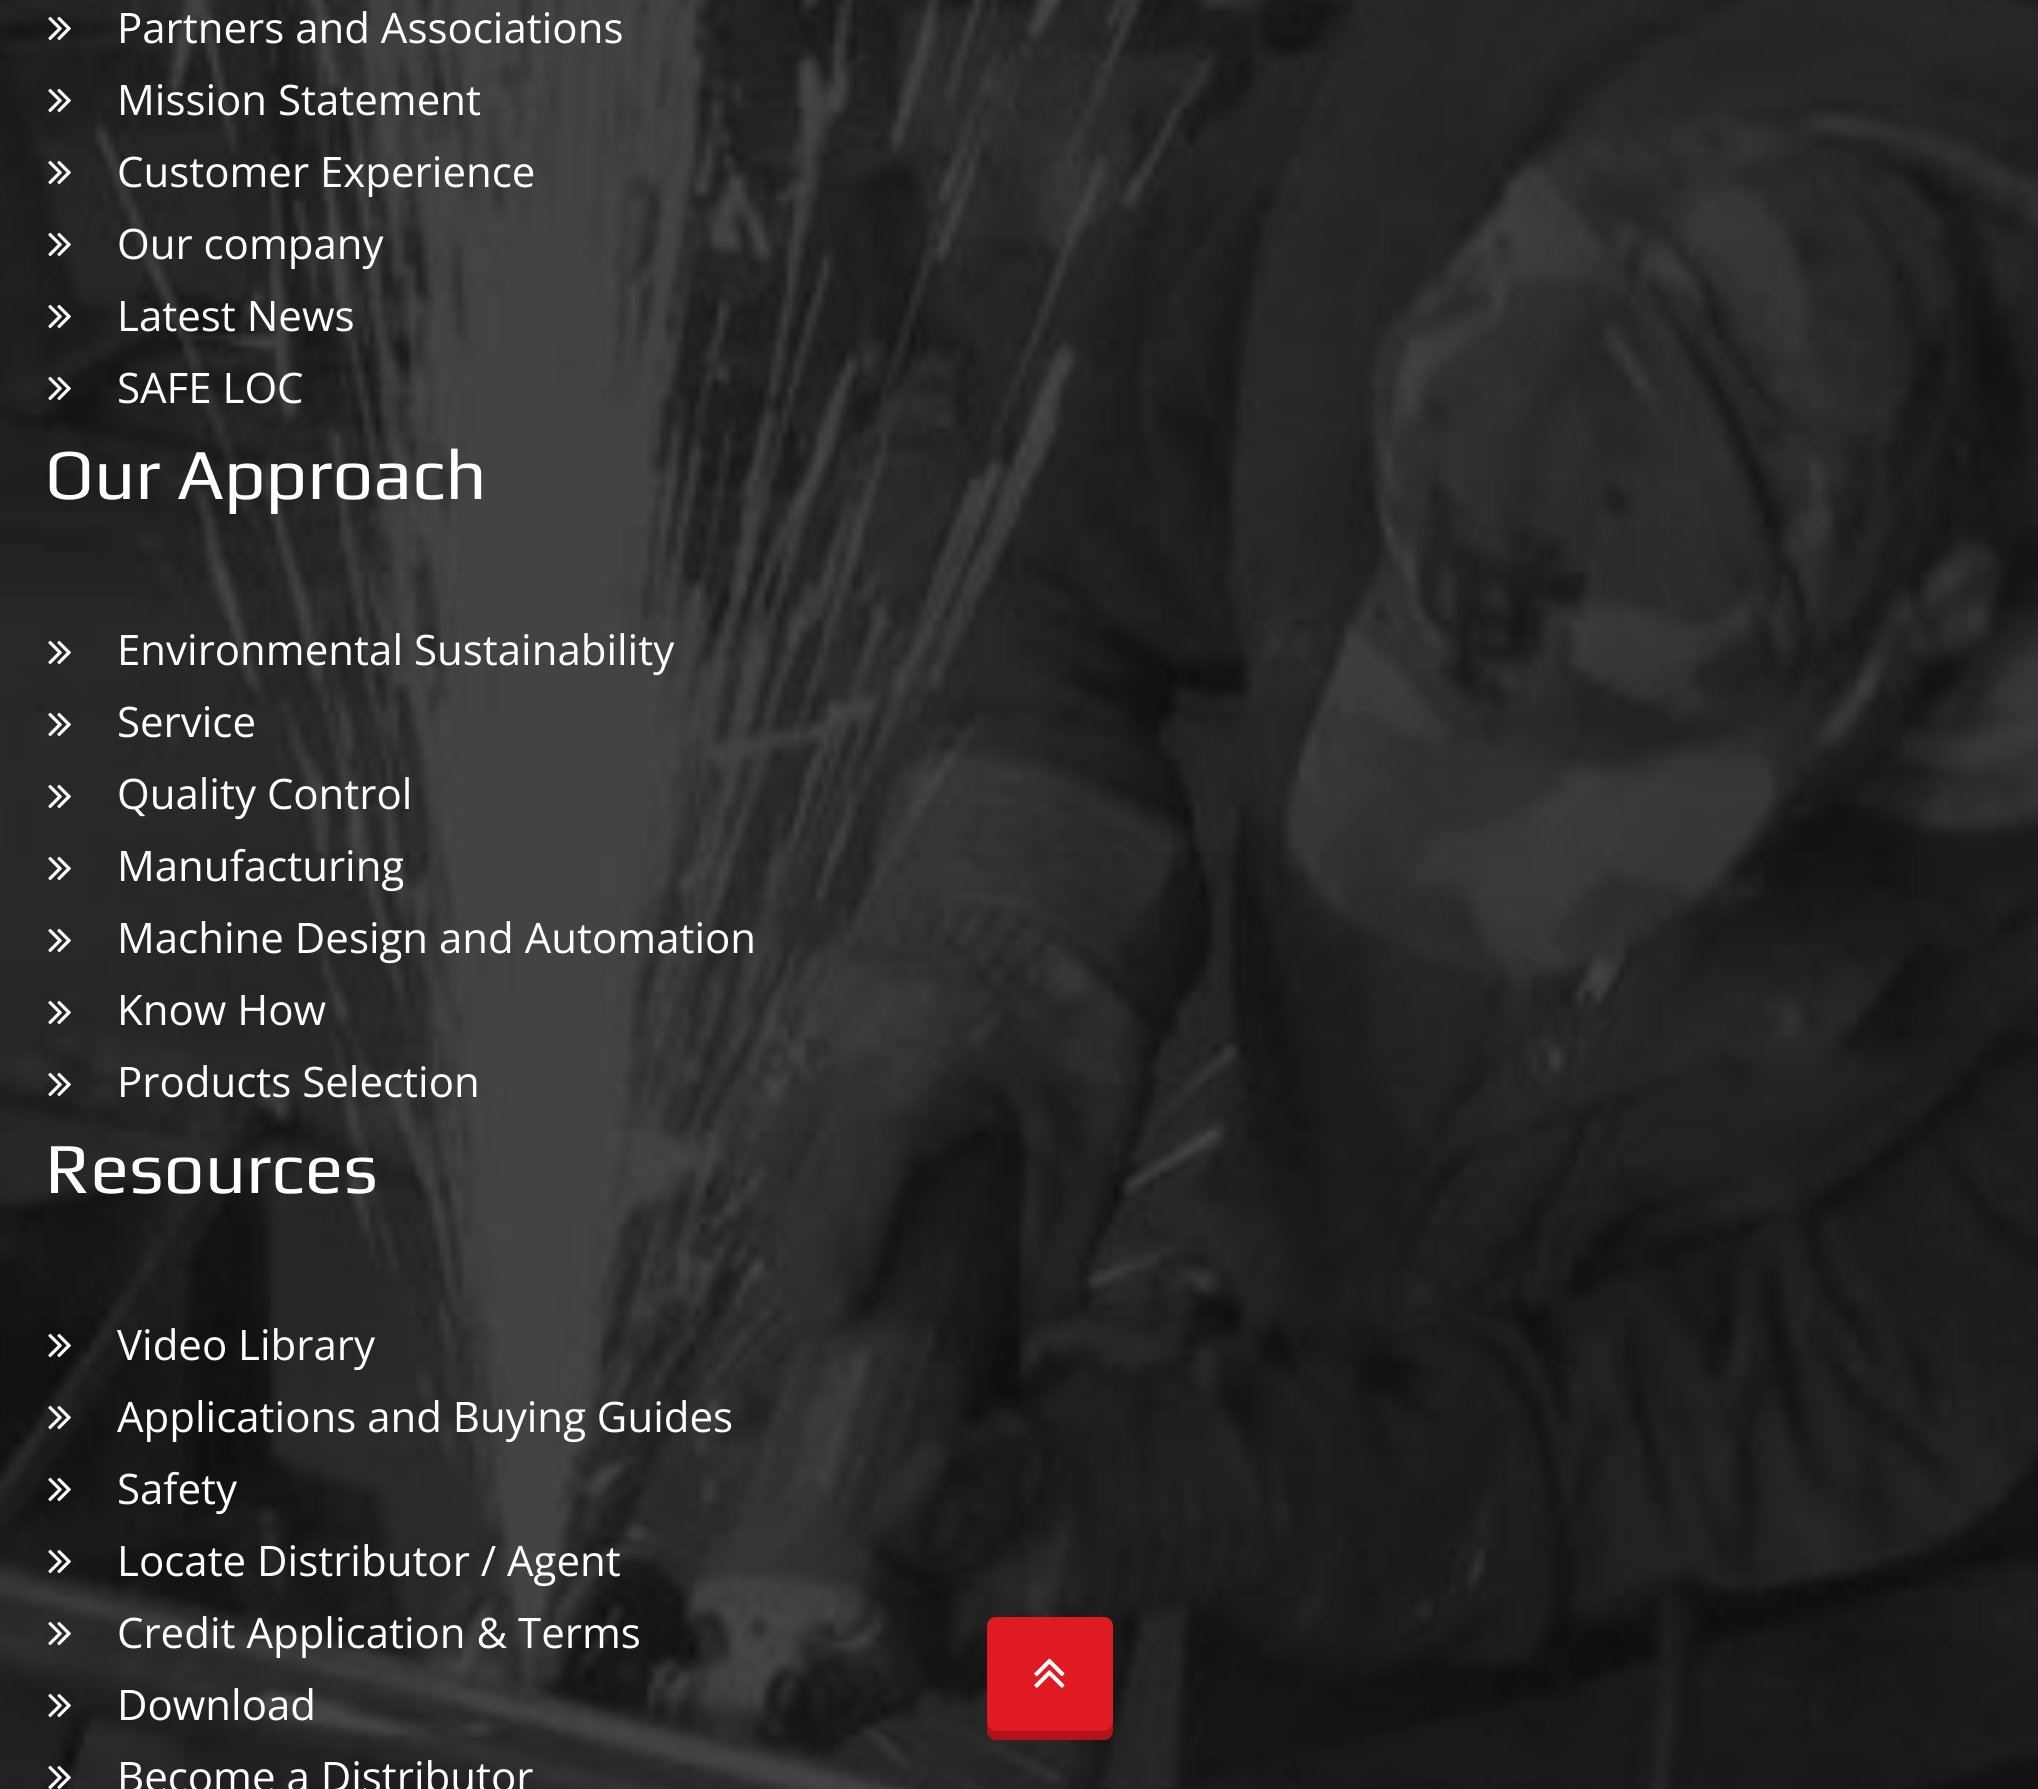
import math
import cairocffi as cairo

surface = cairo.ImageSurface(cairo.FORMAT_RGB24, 2038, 1789)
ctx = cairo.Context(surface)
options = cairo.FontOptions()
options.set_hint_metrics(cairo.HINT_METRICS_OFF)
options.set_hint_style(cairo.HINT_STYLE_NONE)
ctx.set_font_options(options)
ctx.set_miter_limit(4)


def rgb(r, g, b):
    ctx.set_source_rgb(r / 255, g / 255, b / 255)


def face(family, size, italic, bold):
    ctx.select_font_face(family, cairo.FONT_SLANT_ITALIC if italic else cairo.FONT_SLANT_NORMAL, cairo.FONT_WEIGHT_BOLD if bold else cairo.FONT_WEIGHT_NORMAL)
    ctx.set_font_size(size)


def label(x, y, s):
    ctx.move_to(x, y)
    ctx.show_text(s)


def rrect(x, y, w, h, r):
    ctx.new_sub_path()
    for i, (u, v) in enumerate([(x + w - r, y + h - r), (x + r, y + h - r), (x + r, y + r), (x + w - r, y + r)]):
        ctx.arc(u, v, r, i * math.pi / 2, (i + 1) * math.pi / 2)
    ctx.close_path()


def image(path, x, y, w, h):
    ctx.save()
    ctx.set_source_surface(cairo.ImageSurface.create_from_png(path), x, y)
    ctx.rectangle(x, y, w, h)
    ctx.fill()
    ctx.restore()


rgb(255, 255, 255)
ctx.paint()
image('image0.png', 0, 0, 2038, 1789)
image('image1.png', 48, 16, 23, 25)
face('Open Sans', 42, 0, 0)
rgb(255, 255, 255)
label(117, 43, 'Partners and Associations')
image('image2.png', 48, 88, 23, 25)
label(117, 115, 'Mission Statement')
image('image3.png', 48, 160, 23, 25)
label(117, 187, 'Customer Experience')
image('image4.png', 48, 232, 23, 25)
label(117, 259, 'Our company')
image('image5.png', 48, 304, 23, 25)
label(117, 331, 'Latest News')
image('image6.png', 48, 376, 23, 25)
label(117, 403, 'SAFE LOC')
face('Play', 72, 0, 0)
label(45, 499, 'Our Approach')
image('image7.png', 48, 640, 23, 25)
face('Open Sans', 42, 0, 0)
label(117, 665, 'Environmental Sustainability')
image('image8.png', 48, 712, 23, 25)
label(117, 737, 'Service')
image('image9.png', 48, 784, 23, 25)
label(117, 809, 'Quality Control')
image('image9.png', 48, 856, 23, 25)
label(117, 881, 'Manufacturing')
image('image9.png', 48, 928, 23, 25)
label(117, 953, 'Machine Design and Automation')
image('image10.png', 48, 1000, 23, 25)
label(117, 1025, 'Know How')
image('image11.png', 48, 1072, 23, 25)
label(117, 1097, 'Products Selection')
face('Play', 72, 0, 0)
label(45, 1193, 'Resources')
image('image12.png', 48, 1333, 23, 25)
face('Open Sans', 42, 0, 0)
label(117, 1360, 'Video Library')
image('image13.png', 48, 1405, 23, 25)
label(117, 1432, 'Applications and Buying Guides')
image('image14.png', 48, 1477, 23, 25)
label(117, 1504, 'Safety')
image('image15.png', 48, 1549, 23, 25)
label(117, 1576, 'Locate Distributor / Agent')
image('image16.png', 48, 1621, 23, 25)
label(117, 1648, 'Credit Application & Terms')
image('image17.png', 48, 1693, 23, 25)
label(117, 1720, 'Download')
image('image18.png', 48, 1765, 23, 24)
label(117, 1792, 'Become a Distributor')
rgb(177, 19, 25)
ctx.new_path()
ctx.move_to(987, 1722)
ctx.line_to(987, 1731)
ctx.curve_to(987, 1736, 991, 1740, 996, 1740)
ctx.line_to(1104, 1740)
ctx.curve_to(1109, 1740, 1113, 1736, 1113, 1731)
ctx.line_to(1113, 1722)
ctx.curve_to(1113, 1727, 1109, 1731, 1104, 1731)
ctx.line_to(996, 1731)
ctx.curve_to(991, 1731, 987, 1727, 987, 1722)
ctx.close_path()
ctx.fill()
rgb(224, 26, 34)
rrect(987, 1617, 126, 114, 9)
ctx.fill()
image('image19.png', 1034, 1658, 31, 30)
surface.write_to_png('render.png')
